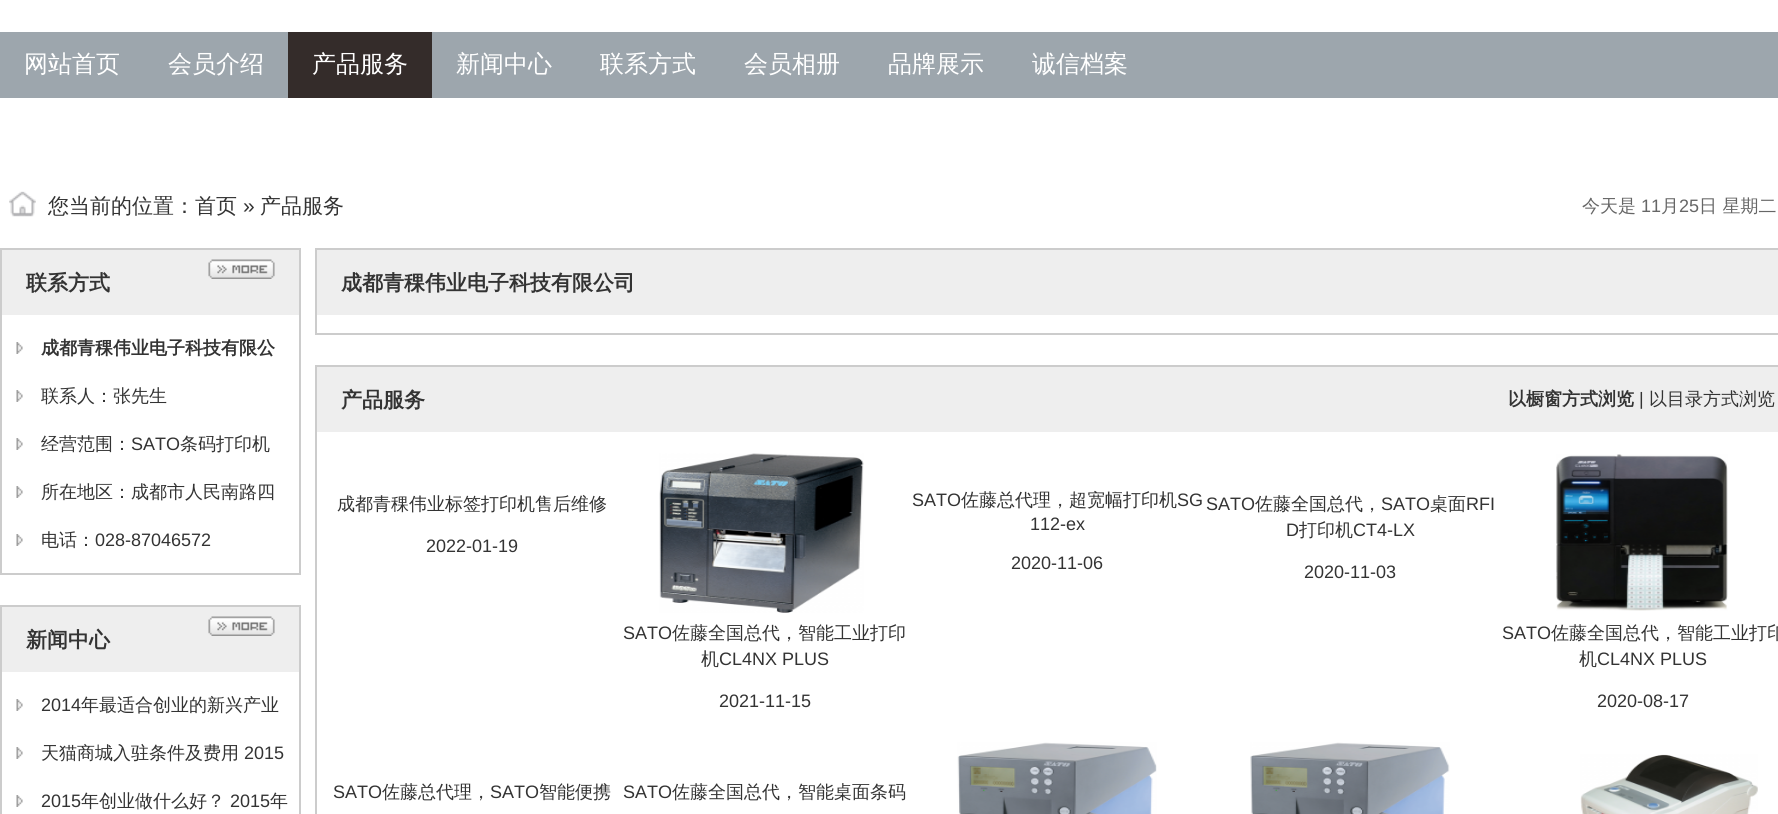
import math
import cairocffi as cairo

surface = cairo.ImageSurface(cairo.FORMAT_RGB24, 1778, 814)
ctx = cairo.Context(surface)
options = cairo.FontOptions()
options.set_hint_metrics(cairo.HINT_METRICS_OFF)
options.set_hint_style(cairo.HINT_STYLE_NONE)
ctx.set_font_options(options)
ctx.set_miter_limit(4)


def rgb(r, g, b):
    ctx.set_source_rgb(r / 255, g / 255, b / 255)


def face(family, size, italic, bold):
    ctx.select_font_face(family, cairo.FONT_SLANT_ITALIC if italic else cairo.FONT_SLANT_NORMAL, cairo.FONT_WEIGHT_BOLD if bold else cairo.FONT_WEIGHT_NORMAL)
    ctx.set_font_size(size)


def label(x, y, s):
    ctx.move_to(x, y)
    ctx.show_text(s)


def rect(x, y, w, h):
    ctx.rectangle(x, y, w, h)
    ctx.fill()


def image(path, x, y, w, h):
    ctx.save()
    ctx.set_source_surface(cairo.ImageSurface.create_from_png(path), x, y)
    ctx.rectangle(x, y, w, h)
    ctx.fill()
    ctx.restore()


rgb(255, 255, 255)
ctx.paint()
rgb(157, 166, 173)
rect(0, 32, 1778, 66)
face('WenQuanYi Zen Hei Medium', 24, 0, 0)
rgb(255, 255, 255)
label(24, 72, '网站首页')
label(168, 72, '会员介绍')
rgb(52, 44, 42)
rect(288, 32, 144, 66)
rgb(255, 255, 255)
label(312, 72, '产品服务')
label(456, 72, '新闻中心')
label(600, 72, '联系方式')
label(744, 72, '会员相册')
label(888, 72, '品牌展示')
label(1032, 72, '诚信档案')
image('image0.png', 9, 191, 27, 26)
face('WenQuanYi Zen Hei Medium', 21, 0, 0)
rgb(51, 51, 51)
label(48, 213, '您当前的位置：首页')
face('Liberation Sans', 21, 0, 0)
label(243, 213, '»')
face('WenQuanYi Zen Hei Medium', 21, 0, 0)
label(260, 213, '产品服务')
face('WenQuanYi Zen Hei Medium', 18, 0, 0)
rgb(102, 102, 102)
label(1582, 212, '今天是')
face('Liberation Sans', 18, 0, 0)
label(1641, 212, '11')
face('WenQuanYi Zen Hei Medium', 18, 0, 0)
label(1661, 212, '月')
face('Liberation Sans', 18, 0, 0)
label(1679, 212, '25')
face('WenQuanYi Zen Hei Medium', 18, 0, 0)
label(1699, 212, '日 星期二')
rgb(238, 238, 238)
rect(2, 250, 297, 65)
rgb(204, 204, 204)
rect(0, 248, 300, 2)
rect(299, 248, 2, 327)
rect(0, 248, 2, 67)
image('image1.png', 208, 259, 67, 20)
face('WenQuanYi Zen Hei', 21, 0, 1)
rgb(51, 51, 51)
label(26, 290, '联系方式')
rgb(204, 204, 204)
rect(0, 573, 300, 2)
rect(0, 315, 2, 260)
image('image2.png', 16, 342, 7, 12)
face('WenQuanYi Zen Hei', 18, 0, 1)
rgb(51, 51, 51)
label(41, 354, '成都青稞伟业电子科技有限公')
image('image2.png', 16, 390, 7, 12)
face('WenQuanYi Zen Hei Medium', 18, 0, 0)
label(41, 402, '联系人：张先生')
image('image2.png', 16, 438, 7, 12)
label(41, 450, '经营范围：')
face('Liberation Sans', 18, 0, 0)
label(131, 450, 'SATO')
face('WenQuanYi Zen Hei Medium', 18, 0, 0)
label(180, 450, '条码打印机')
image('image2.png', 16, 486, 7, 12)
label(41, 498, '所在地区：成都市人民南路四')
image('image2.png', 16, 534, 7, 12)
label(41, 546, '电话：')
face('Liberation Sans', 18, 0, 0)
label(95, 546, '028-87046572')
rgb(238, 238, 238)
rect(2, 607, 297, 65)
rgb(204, 204, 204)
rect(0, 605, 300, 2)
rect(299, 605, 2, 209)
rect(0, 605, 2, 209)
image('image1.png', 208, 616, 67, 20)
face('WenQuanYi Zen Hei', 21, 0, 1)
rgb(51, 51, 51)
label(26, 647, '新闻中心')
image('image2.png', 16, 699, 7, 12)
face('Liberation Sans', 18, 0, 0)
label(41, 711, '2014')
face('WenQuanYi Zen Hei Medium', 18, 0, 0)
label(81, 711, '年最适合创业的新兴产业')
image('image2.png', 16, 747, 7, 12)
label(41, 759, '天猫商城入驻条件及费用')
face('Liberation Sans', 18, 0, 0)
label(244, 759, '2015')
image('image2.png', 16, 795, 7, 12)
label(41, 807, '2015')
face('WenQuanYi Zen Hei Medium', 18, 0, 0)
label(81, 807, '年创业做什么好？')
face('Liberation Sans', 18, 0, 0)
label(230, 807, '2015')
face('WenQuanYi Zen Hei Medium', 18, 0, 0)
label(270, 807, '年')
rgb(238, 238, 238)
rect(317, 250, 1461, 65)
rgb(204, 204, 204)
rect(315, 248, 1463, 2)
rect(315, 248, 2, 67)
face('WenQuanYi Zen Hei', 21, 0, 1)
rgb(51, 51, 51)
label(341, 290, '成都青稞伟业电子科技有限公司')
rgb(204, 204, 204)
rect(315, 333, 1463, 2)
rect(315, 315, 2, 20)
rgb(238, 238, 238)
rect(317, 367, 1461, 65)
rgb(204, 204, 204)
rect(315, 365, 1463, 2)
rect(315, 365, 2, 449)
rgb(51, 51, 51)
label(341, 407, '产品服务')
face('WenQuanYi Zen Hei', 18, 0, 1)
label(1508, 405, '以橱窗方式浏览')
face('Liberation Sans', 18, 0, 0)
label(1639, 405, '|')
face('WenQuanYi Zen Hei Medium', 18, 0, 0)
label(1649, 405, '以目录方式浏览')
label(337, 510, '成都青稞伟业标签打印机售后维修')
face('Liberation Sans', 18, 0, 0)
label(426, 552, '2022-01-19')
label(912, 506, 'SATO')
face('WenQuanYi Zen Hei Medium', 18, 0, 0)
label(961, 506, '佐藤总代理，超宽幅打印机')
face('Liberation Sans', 18, 0, 0)
label(1177, 506, 'SG')
label(1030, 530, '112-ex')
label(1011, 569, '2020-11-06')
label(1206, 510, 'SATO')
face('WenQuanYi Zen Hei Medium', 18, 0, 0)
label(1255, 510, '佐藤全国总代，')
face('Liberation Sans', 18, 0, 0)
label(1381, 510, 'SATO')
face('WenQuanYi Zen Hei Medium', 18, 0, 0)
label(1430, 510, '桌面')
face('Liberation Sans', 18, 0, 0)
label(1466, 510, 'RFI')
label(1286, 536, 'D')
face('WenQuanYi Zen Hei Medium', 18, 0, 0)
label(1299, 536, '打印机')
face('Liberation Sans', 18, 0, 0)
label(1353, 536, 'CT4-LX')
label(1304, 578, '2020-11-03')
image('image3.png', 659, 453, 205, 160)
label(623, 639, 'SATO')
face('WenQuanYi Zen Hei Medium', 18, 0, 0)
label(672, 639, '佐藤全国总代，智能工业打印')
label(701, 665, '机')
face('Liberation Sans', 18, 0, 0)
label(719, 665, 'CL4NX PLUS')
label(719, 707, '2021-11-15')
image('image4.png', 1556, 454, 172, 157)
label(1502, 639, 'SATO')
face('WenQuanYi Zen Hei Medium', 18, 0, 0)
label(1551, 639, '佐藤全国总代，智能工业打印')
label(1579, 665, '机')
face('Liberation Sans', 18, 0, 0)
label(1597, 665, 'CL4NX PLUS')
label(1597, 707, '2020-08-17')
label(333, 798, 'SATO')
face('WenQuanYi Zen Hei Medium', 18, 0, 0)
label(382, 798, '佐藤总代理，')
face('Liberation Sans', 18, 0, 0)
label(490, 798, 'SATO')
face('WenQuanYi Zen Hei Medium', 18, 0, 0)
label(539, 798, '智能便携')
face('Liberation Sans', 18, 0, 0)
label(623, 798, 'SATO')
face('WenQuanYi Zen Hei Medium', 18, 0, 0)
label(672, 798, '佐藤全国总代，智能桌面条码')
image('image5.png', 957, 742, 200, 72)
image('image6.png', 1250, 742, 200, 72)
image('image7.png', 1580, 754, 178, 60)
surface.write_to_png('render.png')
